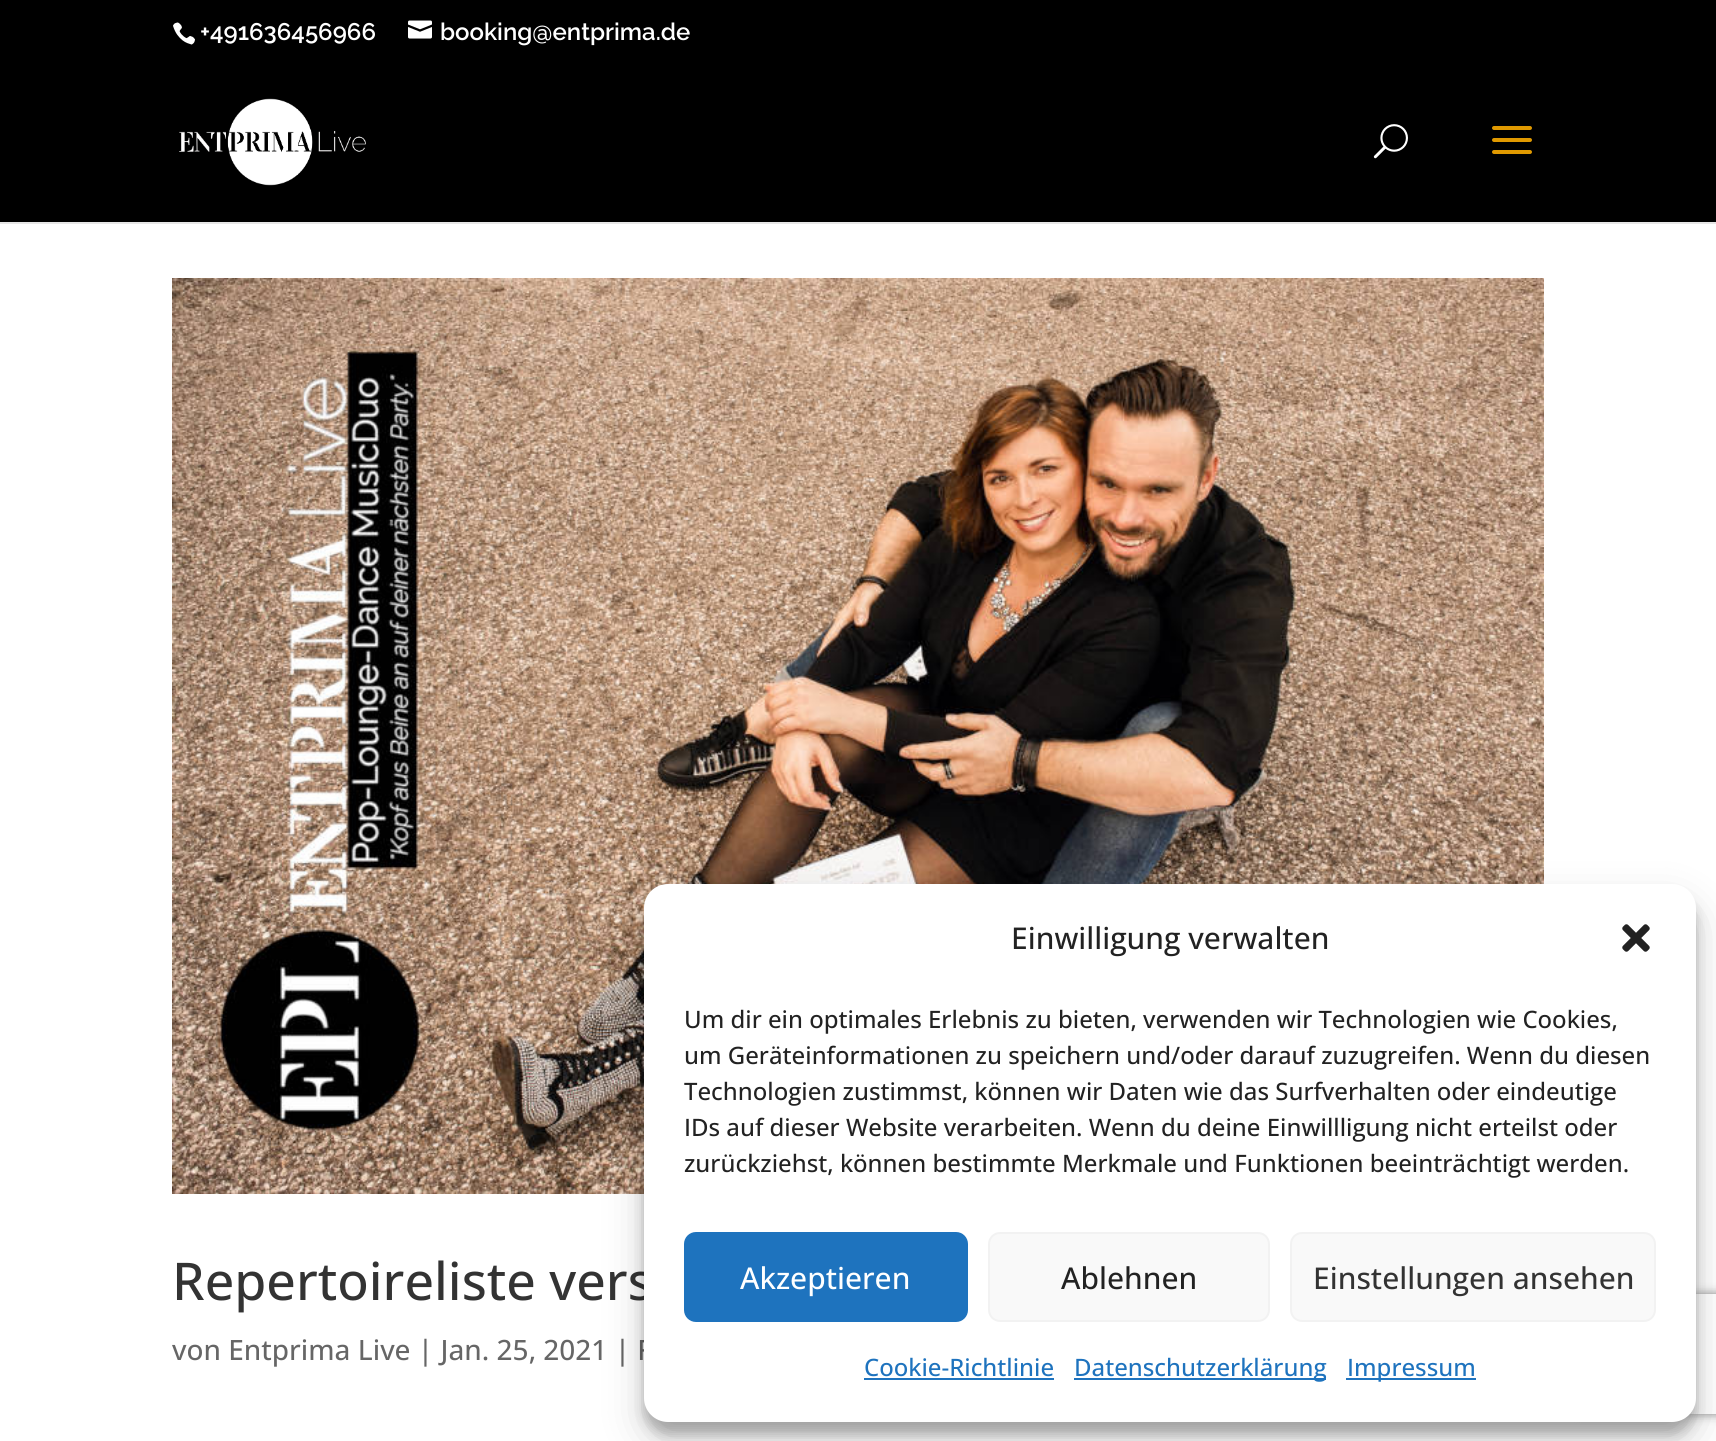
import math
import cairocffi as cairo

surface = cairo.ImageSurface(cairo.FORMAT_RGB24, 1716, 1441)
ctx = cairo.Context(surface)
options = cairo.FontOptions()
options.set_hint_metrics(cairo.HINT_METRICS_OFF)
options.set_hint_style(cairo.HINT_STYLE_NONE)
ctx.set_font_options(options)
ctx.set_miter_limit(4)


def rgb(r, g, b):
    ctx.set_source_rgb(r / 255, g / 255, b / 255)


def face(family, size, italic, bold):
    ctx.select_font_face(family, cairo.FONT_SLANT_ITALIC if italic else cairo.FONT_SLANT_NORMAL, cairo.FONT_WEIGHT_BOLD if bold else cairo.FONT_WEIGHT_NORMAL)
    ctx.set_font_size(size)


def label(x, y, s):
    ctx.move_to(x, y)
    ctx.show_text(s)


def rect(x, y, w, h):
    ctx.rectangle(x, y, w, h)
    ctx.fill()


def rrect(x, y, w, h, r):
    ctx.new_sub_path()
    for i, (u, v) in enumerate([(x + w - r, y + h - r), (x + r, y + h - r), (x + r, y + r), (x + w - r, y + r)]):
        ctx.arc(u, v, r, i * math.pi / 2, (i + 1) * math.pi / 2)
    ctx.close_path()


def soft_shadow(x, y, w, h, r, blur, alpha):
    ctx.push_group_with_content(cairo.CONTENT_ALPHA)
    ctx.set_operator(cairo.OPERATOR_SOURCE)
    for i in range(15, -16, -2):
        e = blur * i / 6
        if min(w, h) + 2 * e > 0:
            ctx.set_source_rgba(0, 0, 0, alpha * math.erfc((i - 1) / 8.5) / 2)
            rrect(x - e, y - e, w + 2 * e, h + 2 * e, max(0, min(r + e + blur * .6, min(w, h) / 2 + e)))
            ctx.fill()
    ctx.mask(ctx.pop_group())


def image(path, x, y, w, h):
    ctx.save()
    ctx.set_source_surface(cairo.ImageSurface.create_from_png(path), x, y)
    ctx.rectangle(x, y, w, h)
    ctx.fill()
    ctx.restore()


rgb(0, 0, 0)
ctx.paint()
image('image0.png', 173, 22, 22, 23)
face('Raleway Thin', 24, 0, 0)
rgb(255, 255, 255)
label(200, 40, '+491636456966')
image('image1.png', 408, 20, 24, 19)
label(440, 40, 'booking@entprima.de')
rgb(230, 230, 230)
rect(0, 222, 1716, 2)
image('image2.png', 179, 98, 187, 88)
image('image3.png', 1373, 124, 35, 35)
image('image4.png', 1492, 126, 40, 28)
rgb(255, 255, 255)
rect(0, 224, 1716, 1217)
image('image5.png', 172, 278, 1372, 916)
face('Open Sans Medium', 52, 0, 0)
rgb(51, 51, 51)
label(172, 1300, 'Repertoireliste vers')
face('Open Sans Medium', 28, 0, 0)
rgb(102, 102, 102)
label(172, 1360, 'von Entprima Live | Jan. 25, 2021 | F')
rgb(0, 0, 0)
soft_shadow(644, 896, 1052, 538, 24, 6, 0.23)
soft_shadow(644, 904, 1052, 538, 24, 20, 0.19)
ctx.save()
ctx.set_fill_rule(cairo.FILL_RULE_EVEN_ODD)
ctx.new_path()
ctx.move_to(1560, 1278)
ctx.line_to(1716, 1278)
ctx.line_to(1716, 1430)
ctx.line_to(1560, 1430)
ctx.close_path()
ctx.move_to(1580, 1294)
ctx.line_to(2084, 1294)
ctx.curve_to(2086, 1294, 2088, 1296, 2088, 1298)
ctx.line_to(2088, 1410)
ctx.curve_to(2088, 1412, 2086, 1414, 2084, 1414)
ctx.line_to(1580, 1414)
ctx.curve_to(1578, 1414, 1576, 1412, 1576, 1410)
ctx.line_to(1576, 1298)
ctx.curve_to(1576, 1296, 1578, 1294, 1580, 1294)
ctx.close_path()
ctx.clip()
rgb(128, 128, 128)
soft_shadow(1576, 1294, 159, 120, 4, 5, 1)
ctx.restore()
rgb(255, 255, 255)
rrect(644, 884, 1052, 538, 24)
ctx.fill()
face('Open Sans Medium', 30, 0, 0)
rgb(34, 34, 34)
label(1011, 949, 'Einwilligung verwalten')
image('image6.png', 1622, 924, 28, 28)
face('Open Sans Medium', 24, 0, 0)
label(684, 1028, 'Um dir ein optimales Erlebnis zu bieten, verwenden wir Technologien wie Cookies,')
label(684, 1064, 'um Geräteinformationen zu speichern und/oder darauf zuzugreifen. Wenn du diesen')
label(684, 1100, 'Technologien zustimmst, können wir Daten wie das Surfverhalten oder eindeutige')
label(684, 1136, 'IDs auf dieser Website verarbeiten. Wenn du deine Einwillligung nicht erteilst oder')
label(684, 1172, 'zurückziehst, können bestimmte Merkmale und Funktionen beeinträchtigt werden.')
rgb(30, 115, 190)
rrect(685, 1233, 282, 88, 11)
ctx.fill_preserve()
ctx.stroke()
face('Open Sans Medium', 30, 0, 0)
rgb(255, 255, 255)
label(740, 1289, 'Akzeptieren')
rgb(249, 249, 249)
rrect(989, 1233, 280, 88, 11)
ctx.fill_preserve()
rgb(242, 242, 242)
ctx.stroke()
rgb(34, 34, 34)
label(1061, 1289, 'Ablehnen')
rgb(249, 249, 249)
rrect(1291, 1233, 364, 88, 11)
ctx.fill_preserve()
rgb(242, 242, 242)
ctx.stroke()
rgb(51, 51, 51)
label(1313, 1289, 'Einstellungen ansehen')
face('Open Sans Medium', 24, 0, 0)
rgb(30, 115, 190)
label(864, 1376, 'Cookie-Richtlinie')
rect(864, 1378, 190, 2)
rect(1074, 1378, 252, 2)
label(1074, 1376, 'Datenschutzerklärung')
rect(1346, 1378, 130, 2)
label(1347, 1376, 'Impressum')
surface.write_to_png('render.png')
